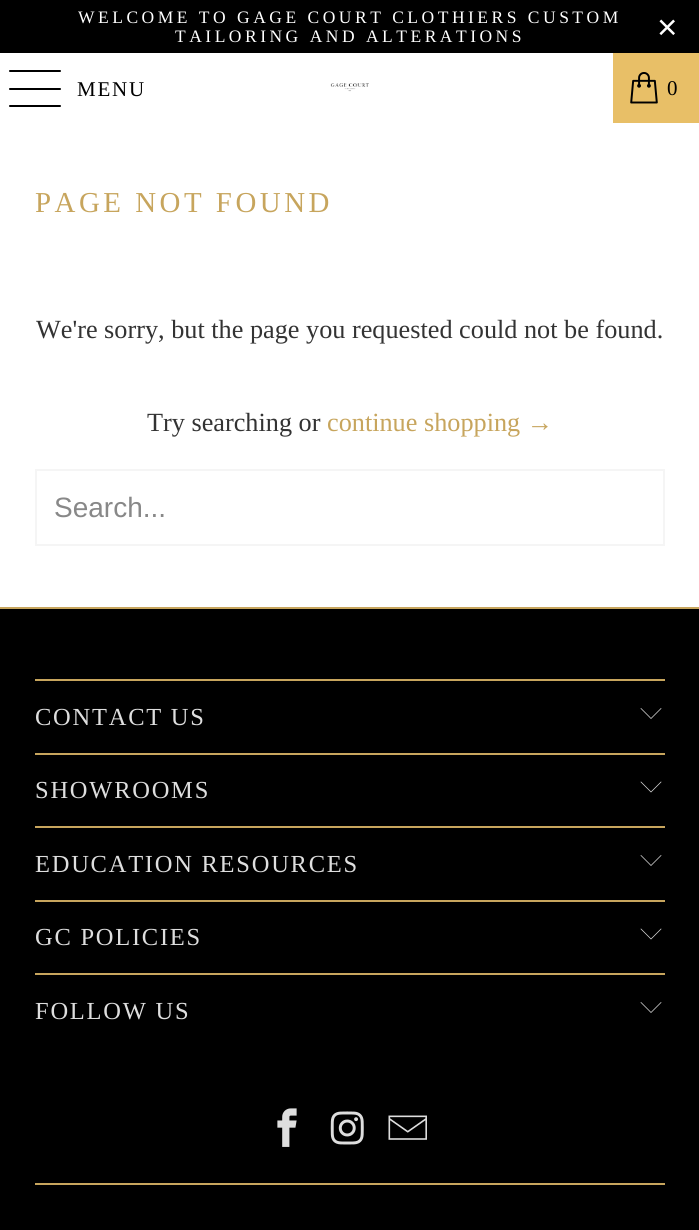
import math
import cairocffi as cairo

surface = cairo.ImageSurface(cairo.FORMAT_RGB24, 699, 1230)
ctx = cairo.Context(surface)
options = cairo.FontOptions()
options.set_hint_metrics(cairo.HINT_METRICS_OFF)
options.set_hint_style(cairo.HINT_STYLE_NONE)
ctx.set_font_options(options)
ctx.set_miter_limit(4)


def rgb(r, g, b):
    ctx.set_source_rgb(r / 255, g / 255, b / 255)


def face(family, size, italic, bold):
    ctx.select_font_face(family, cairo.FONT_SLANT_ITALIC if italic else cairo.FONT_SLANT_NORMAL, cairo.FONT_WEIGHT_BOLD if bold else cairo.FONT_WEIGHT_NORMAL)
    ctx.set_font_size(size)


def label(x, y, s):
    ctx.move_to(x, y)
    ctx.show_text(s)


def tracked(x, y, s, letter, word):
    ctx.move_to(x, y)
    for ch in s:
        ctx.show_text(ch)
        ctx.rel_move_to(letter + word * (ch == ' '), 0)


def rect(x, y, w, h):
    ctx.rectangle(x, y, w, h)
    ctx.fill()


def rrect(x, y, w, h, r):
    ctx.new_sub_path()
    for i, (u, v) in enumerate([(x + w - r, y + h - r), (x + r, y + h - r), (x + r, y + r), (x + w - r, y + r)]):
        ctx.arc(u, v, r, i * math.pi / 2, (i + 1) * math.pi / 2)
    ctx.close_path()


def image(path, x, y, w, h):
    ctx.save()
    ctx.set_source_surface(cairo.ImageSurface.create_from_png(path), x, y)
    ctx.rectangle(x, y, w, h)
    ctx.fill()
    ctx.restore()


rgb(255, 255, 255)
ctx.paint()
rgb(0, 0, 0)
rect(0, 0, 699, 53)
face('Liberation Serif', 17.5, 0, 0)
rgb(255, 255, 255)
tracked(78, 23, 'WELCOME TO GAGE COURT CLOTHIERS CUSTOM', 3.5, 0)
tracked(175, 42, 'TAILORING AND ALTERATIONS', 3.5, 0)
face('Liberation Sans', 35, 0, 0)
tracked(657, 39, '×', 3.5, 0)
rgb(0, 0, 0)
rrect(9, 70, 52, 2, 1)
ctx.fill()
rrect(9, 88, 52, 2, 1)
ctx.fill()
rrect(9, 105, 52, 2, 1)
ctx.fill()
face('Liberation Serif', 21, 0, 0)
tracked(77, 96, 'MENU', 1.75, 0)
image('image0.png', 330, 83, 39, 9)
rgb(232, 191, 103)
rect(613, 53, 86, 70)
image('image1.png', 630, 72, 28, 32)
rgb(0, 0, 0)
tracked(667, 95, '0', 1.75, 0)
face('Liberation Serif', 28.9, 0, 0)
rgb(199, 165, 93)
tracked(35, 212, 'PAGE NOT FOUND', 3.5, 0)
face('Liberation Serif', 26.25, 0, 0)
rgb(51, 51, 51)
label(36, 338, 'We\'re sorry, but the page you requested could not be found.')
label(147, 431, 'Try searching or')
rgb(199, 165, 93)
label(327, 431, 'continue shopping →')
ctx.rectangle(36, 470, 628, 75)
rgb(245, 245, 245)
ctx.stroke()
face('Liberation Sans', 28, 0, 0)
rgb(136, 136, 136)
label(54, 517, 'Search...')
rgb(0, 0, 0)
rect(0, 609, 699, 621)
rgb(199, 165, 93)
rect(0, 607, 699, 2)
rect(35, 679, 630, 2)
face('Liberation Serif', 24.5, 0, 0)
rgb(222, 222, 222)
tracked(35, 725, 'CONTACT US', 1.75, 0)
ctx.new_path()
ctx.move_to(651, 719)
ctx.line_to(640.5, 708.5)
ctx.line_to(641, 708)
ctx.line_to(651, 718)
ctx.line_to(661, 708)
ctx.line_to(661.5, 708.5)
ctx.close_path()
ctx.fill()
rgb(199, 165, 93)
rect(35, 753, 630, 2)
rgb(222, 222, 222)
tracked(35, 798, 'SHOWROOMS', 1.75, 0)
ctx.new_path()
ctx.move_to(651, 792.5)
ctx.line_to(640.5, 782)
ctx.line_to(641, 781.5)
ctx.line_to(651, 791.5)
ctx.line_to(661, 781.5)
ctx.line_to(661.5, 782)
ctx.close_path()
ctx.fill()
rgb(199, 165, 93)
rect(35, 826, 630, 2)
rgb(222, 222, 222)
tracked(35, 872, 'EDUCATION RESOURCES', 1.75, 0)
ctx.new_path()
ctx.move_to(651, 866)
ctx.line_to(640.5, 855.5)
ctx.line_to(641, 855)
ctx.line_to(651, 865)
ctx.line_to(661, 855)
ctx.line_to(661.5, 855.5)
ctx.close_path()
ctx.fill()
rgb(199, 165, 93)
rect(35, 900, 630, 2)
rgb(222, 222, 222)
tracked(35, 945, 'GC POLICIES', 1.75, 0)
ctx.new_path()
ctx.move_to(651, 939.5)
ctx.line_to(640.5, 929)
ctx.line_to(641, 928.5)
ctx.line_to(651, 938.5)
ctx.line_to(661, 928.5)
ctx.line_to(661.5, 929)
ctx.close_path()
ctx.fill()
rgb(199, 165, 93)
rect(35, 973, 630, 2)
rgb(222, 222, 222)
tracked(35, 1019, 'FOLLOW US', 1.75, 0)
ctx.new_path()
ctx.move_to(651, 1013)
ctx.line_to(640.5, 1002.5)
ctx.line_to(641, 1002)
ctx.line_to(651, 1012)
ctx.line_to(661, 1002)
ctx.line_to(661.5, 1002.5)
ctx.close_path()
ctx.fill()
image('image2.png', 277, 1108, 20, 39)
image('image3.png', 330, 1111, 34, 34)
image('image4.png', 388, 1115, 39, 25)
rgb(199, 165, 93)
rect(35, 1183, 630, 2)
surface.write_to_png('render.png')
